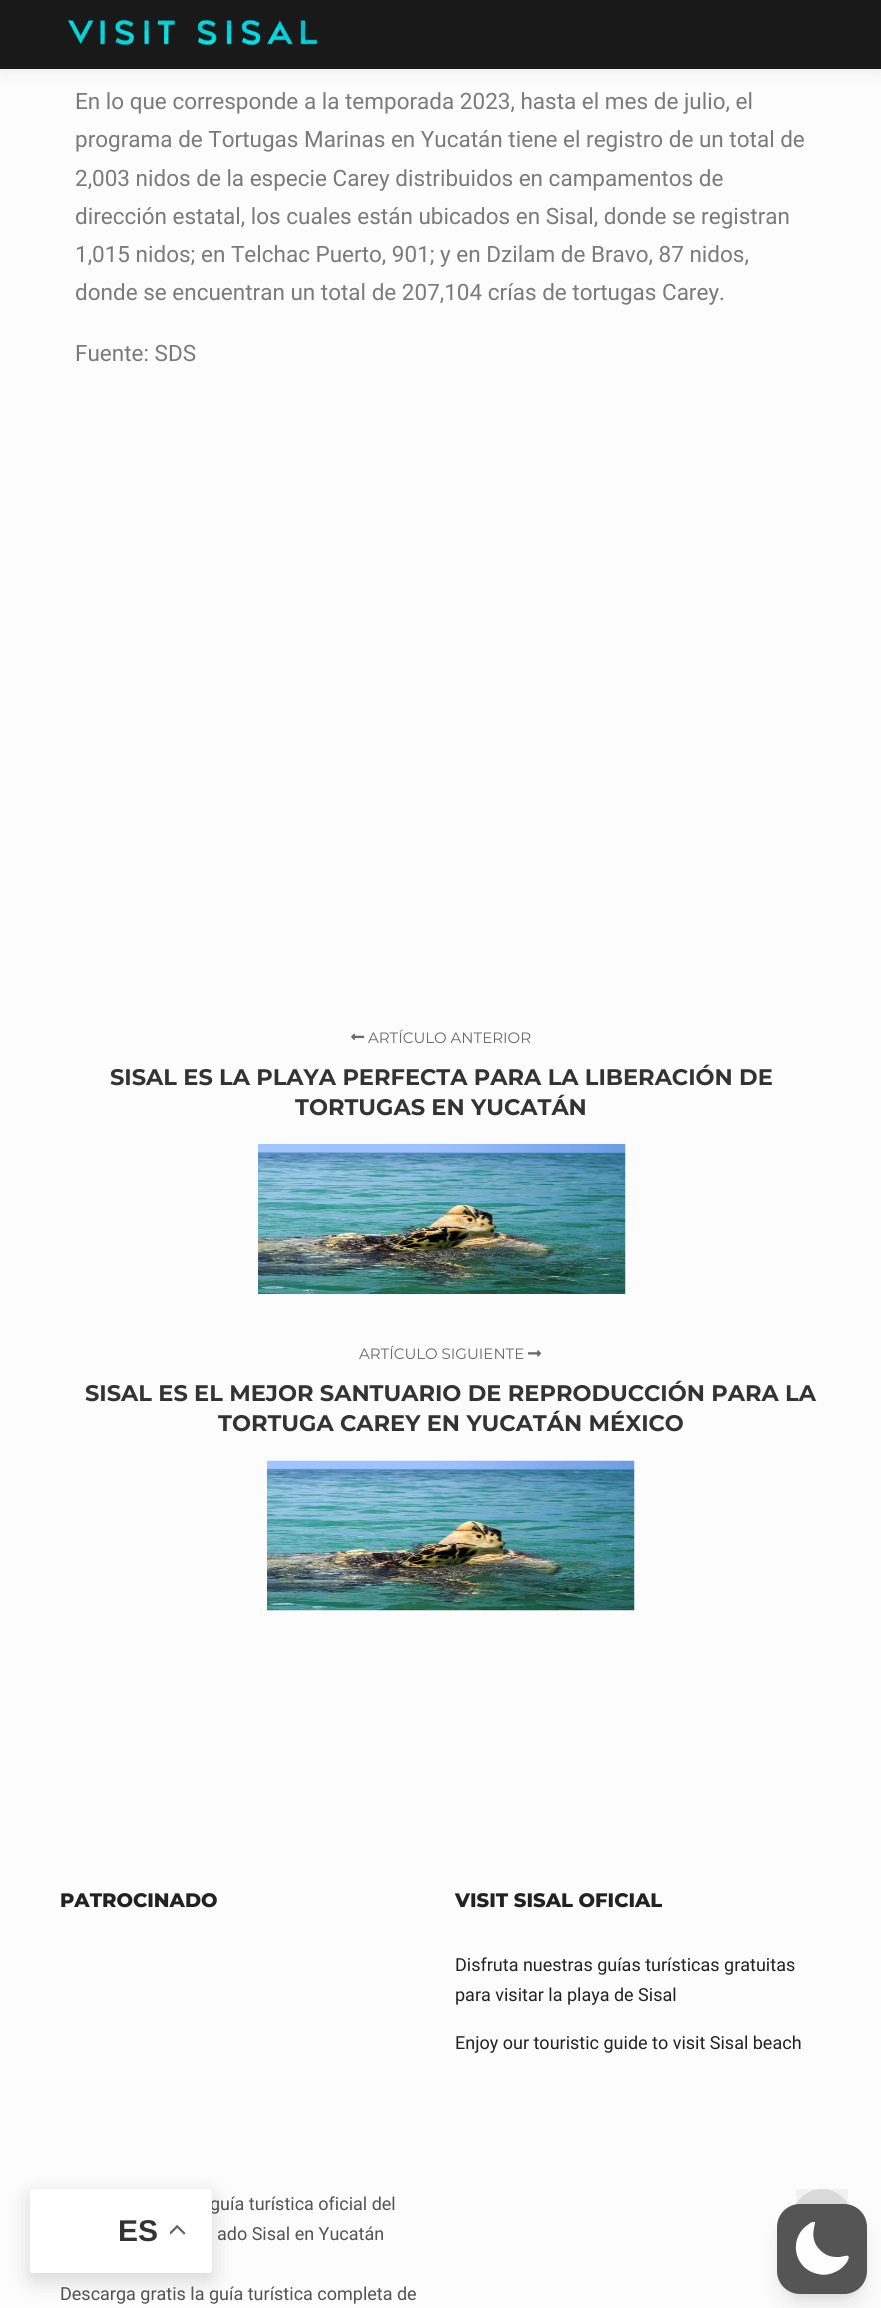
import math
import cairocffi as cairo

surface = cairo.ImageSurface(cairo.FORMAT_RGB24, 881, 2308)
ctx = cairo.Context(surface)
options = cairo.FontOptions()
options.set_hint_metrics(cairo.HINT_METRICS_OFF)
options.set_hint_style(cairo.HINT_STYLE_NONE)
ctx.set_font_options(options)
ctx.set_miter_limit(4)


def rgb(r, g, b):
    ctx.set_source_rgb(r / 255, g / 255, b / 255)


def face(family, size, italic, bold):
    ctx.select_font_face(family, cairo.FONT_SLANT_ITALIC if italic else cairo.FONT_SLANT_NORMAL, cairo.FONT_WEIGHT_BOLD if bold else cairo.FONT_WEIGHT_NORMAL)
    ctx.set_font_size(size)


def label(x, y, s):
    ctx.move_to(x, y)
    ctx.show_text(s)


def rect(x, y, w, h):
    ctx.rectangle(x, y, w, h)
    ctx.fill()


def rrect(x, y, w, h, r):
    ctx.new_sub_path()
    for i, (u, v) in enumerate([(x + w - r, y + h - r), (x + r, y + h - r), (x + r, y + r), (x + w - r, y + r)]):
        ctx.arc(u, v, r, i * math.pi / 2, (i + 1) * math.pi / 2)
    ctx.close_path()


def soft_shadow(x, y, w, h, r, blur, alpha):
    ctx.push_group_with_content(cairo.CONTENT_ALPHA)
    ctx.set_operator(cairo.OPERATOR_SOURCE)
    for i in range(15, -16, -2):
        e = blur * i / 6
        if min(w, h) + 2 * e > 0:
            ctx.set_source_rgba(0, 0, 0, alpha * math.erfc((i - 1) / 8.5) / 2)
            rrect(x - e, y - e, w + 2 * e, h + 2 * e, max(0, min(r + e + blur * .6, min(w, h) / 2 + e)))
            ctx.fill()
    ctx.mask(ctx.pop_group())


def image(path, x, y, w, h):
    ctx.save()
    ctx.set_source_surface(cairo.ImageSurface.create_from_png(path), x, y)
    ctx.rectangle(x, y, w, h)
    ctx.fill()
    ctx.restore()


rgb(252, 252, 252)
ctx.paint()
rgb(0, 0, 0)
soft_shadow(0, 0, 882, 69, 0, 9, 0.09)
rgb(25, 25, 25)
rect(0, 0, 881, 69)
image('image0.png', 68, 19, 249, 27)
face('Roboto', 22.5, 0, 0)
rgb(122, 122, 122)
label(75, 109, 'En lo que corresponde a la temporada 2023, hasta el mes de julio, el')
label(75, 147, 'programa de Tortugas Marinas en Yucatán tiene el registro de un total de')
label(75, 186, '2,003 nidos de la especie Carey distribuidos en campamentos de')
label(75, 224, 'dirección estatal, los cuales están ubicados en Sisal, donde se registran')
label(75, 262, '1,015 nidos; en Telchac Puerto, 901; y en Dzilam de Bravo, 87 nidos,')
label(75, 300, 'donde se encuentran un total de 207,104 crías de tortugas Carey.')
label(75, 361, 'Fuente: SDS')
image('image1.png', 351, 1033, 14, 8)
face('Montserrat', 15, 0, 0)
rgb(106, 106, 106)
label(368, 1043, 'ARTÍCULO ANTERIOR')
face('Montserrat', 22.5, 0, 1)
rgb(51, 51, 51)
label(110, 1085, 'SISAL ES LA PLAYA PERFECTA PARA LA LIBERACIÓN DE')
label(295, 1115, 'TORTUGAS EN YUCATÁN')
image('image2.png', 258, 1144, 368, 150)
face('Montserrat', 15, 0, 0)
rgb(106, 106, 106)
label(359, 1359, 'ARTÍCULO SIGUIENTE')
image('image3.png', 528, 1350, 14, 7)
face('Montserrat', 22.5, 0, 1)
rgb(51, 51, 51)
label(85, 1401, 'SISAL ES EL MEJOR SANTUARIO DE REPRODUCCIÓN PARA LA')
label(218, 1431, 'TORTUGA CAREY EN YUCATÁN MÉXICO')
image('image4.png', 267, 1460, 368, 151)
face('Montserrat ExtraBold', 19.5, 0, 0)
rgb(34, 34, 34)
label(60, 1907, 'PATROCINADO')
label(455, 1907, 'VISIT SISAL OFICIAL')
face('Roboto', 18, 0, 0)
label(455, 1971, 'Disfruta nuestras guías turísticas gratuitas')
label(455, 2001, 'para visitar la playa de Sisal')
label(455, 2049, 'Enjoy our touristic guide to visit Sisal beach')
rgb(83, 83, 83)
label(210, 2210, 'guía turística oficial del')
label(217, 2240, 'ado Sisal en Yucatán')
label(60, 2300, 'Descarga gratis la guía turística completa de')
rgb(227, 227, 227)
ctx.new_path()
ctx.arc(822, 2219, 30, 0, 2 * math.pi)
ctx.fill()
ctx.set_source_rgba(0, 0, 0, 0.04)
rect(796, 2189, 52, 16)
rgb(0, 0, 0)
soft_shadow(30, 2196, 182, 84, 3, 11, 0.15)
rgb(255, 255, 255)
rrect(30, 2189, 182, 84, 3)
ctx.fill()
face('Liberation Sans', 30, 0, 1)
rgb(51, 51, 51)
label(118, 2241, 'ES')
image('image5.png', 170, 2225, 16, 10)
rgb(0, 0, 0)
soft_shadow(783, 2216, 78, 78, 17, 4.5, 0.1)
soft_shadow(782, 2223, 81, 81, 18, 11, 0.1)
rgb(85, 85, 85)
rrect(777, 2204, 90, 90, 23)
ctx.fill()
ctx.save()
ctx.rectangle(795, 2222, 54, 54)
ctx.clip()
rgb(254, 254, 254)
ctx.set_fill_rule(cairo.FILL_RULE_EVEN_ODD)
ctx.new_path()
ctx.move_to(815, 2222)
ctx.curve_to(816, 2224, 808, 2238, 820, 2250)
ctx.curve_to(825, 2255, 830, 2257, 837, 2257)
ctx.curve_to(842, 2258, 853, 2251, 847, 2262)
ctx.curve_to(845, 2265, 842, 2268, 839, 2270)
ctx.curve_to(832, 2274, 825, 2276, 818, 2274)
ctx.curve_to(793, 2269, 788, 2237, 809, 2224)
ctx.curve_to(810, 2223, 813, 2221, 815, 2222)
ctx.close_path()
ctx.fill()
ctx.restore()
surface.write_to_png('render.png')
